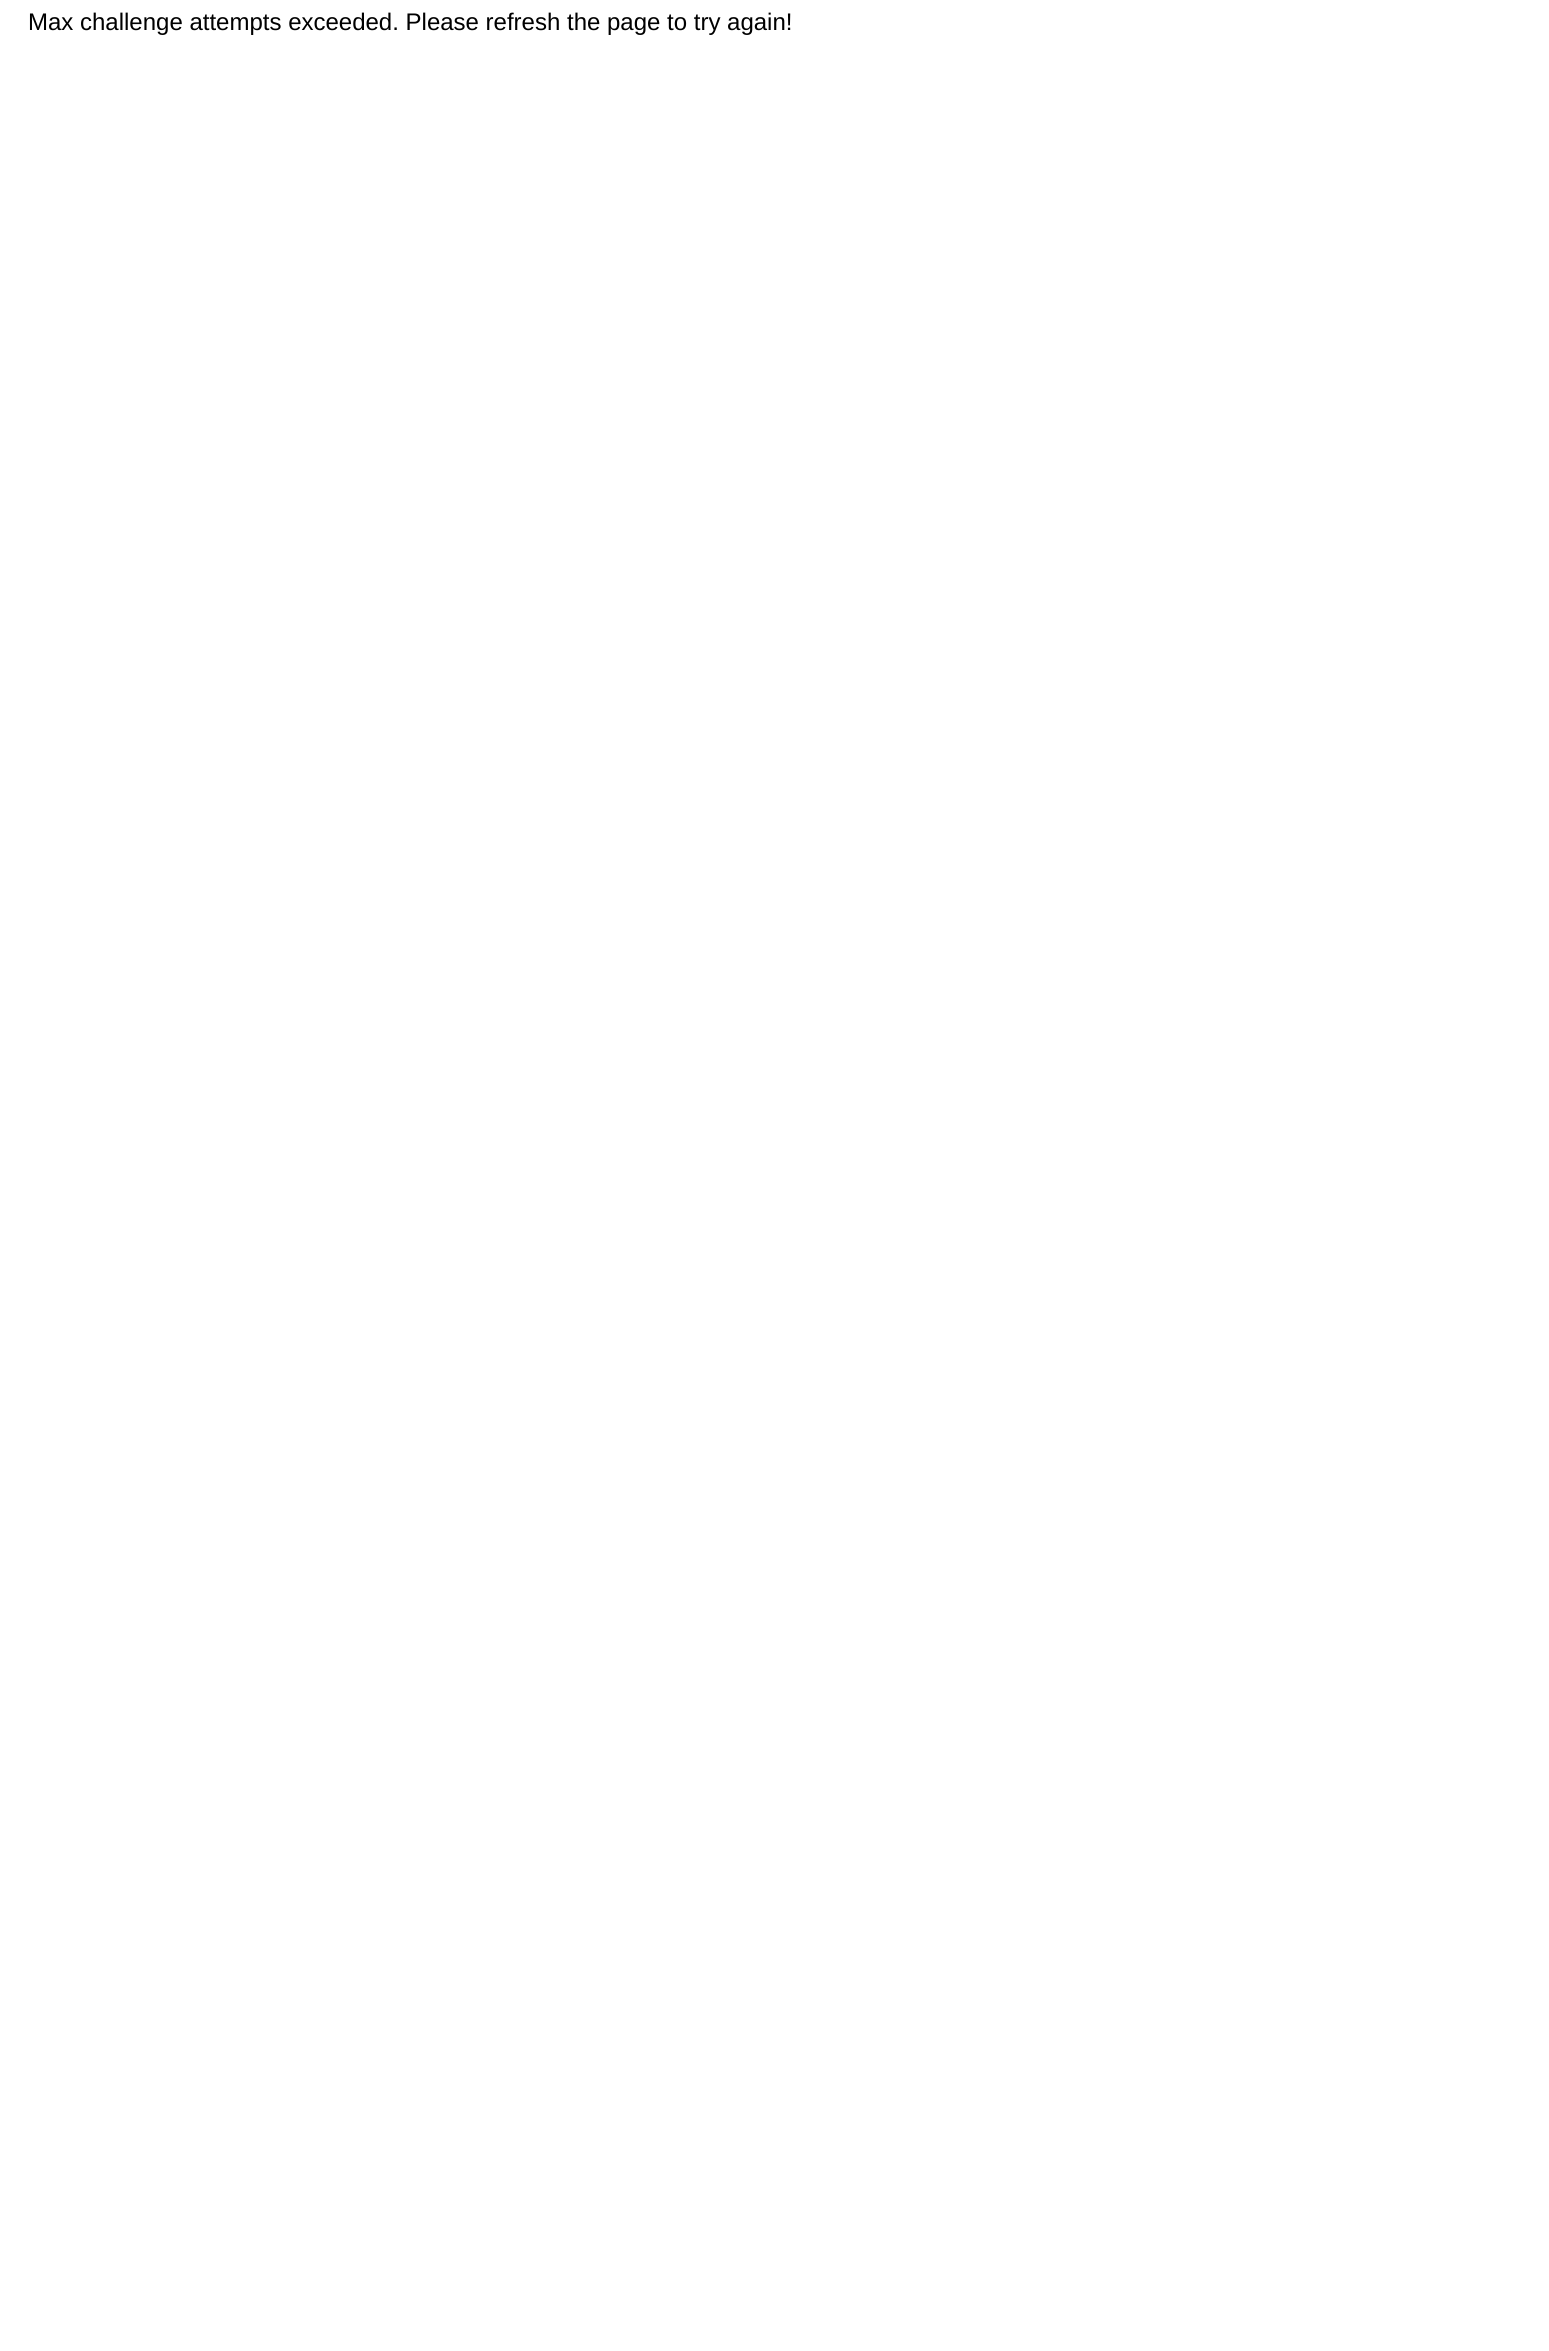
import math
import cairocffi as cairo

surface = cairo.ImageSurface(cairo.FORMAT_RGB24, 1549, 2351)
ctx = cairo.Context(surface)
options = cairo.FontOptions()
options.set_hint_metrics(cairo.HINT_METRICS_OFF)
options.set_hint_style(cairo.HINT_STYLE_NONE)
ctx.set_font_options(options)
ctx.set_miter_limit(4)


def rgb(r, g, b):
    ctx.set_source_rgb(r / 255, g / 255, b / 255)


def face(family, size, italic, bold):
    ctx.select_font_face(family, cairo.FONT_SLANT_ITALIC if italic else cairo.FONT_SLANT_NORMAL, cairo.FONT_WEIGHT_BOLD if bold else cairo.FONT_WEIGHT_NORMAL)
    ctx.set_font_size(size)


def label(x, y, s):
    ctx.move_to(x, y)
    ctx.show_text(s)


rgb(255, 255, 255)
ctx.paint()
face('Liberation Sans', 24, 0, 0)
rgb(0, 0, 0)
label(28, 30, 'Max challenge attempts exceeded. Please refresh the page to try again!')
surface.write_to_png('render.png')
